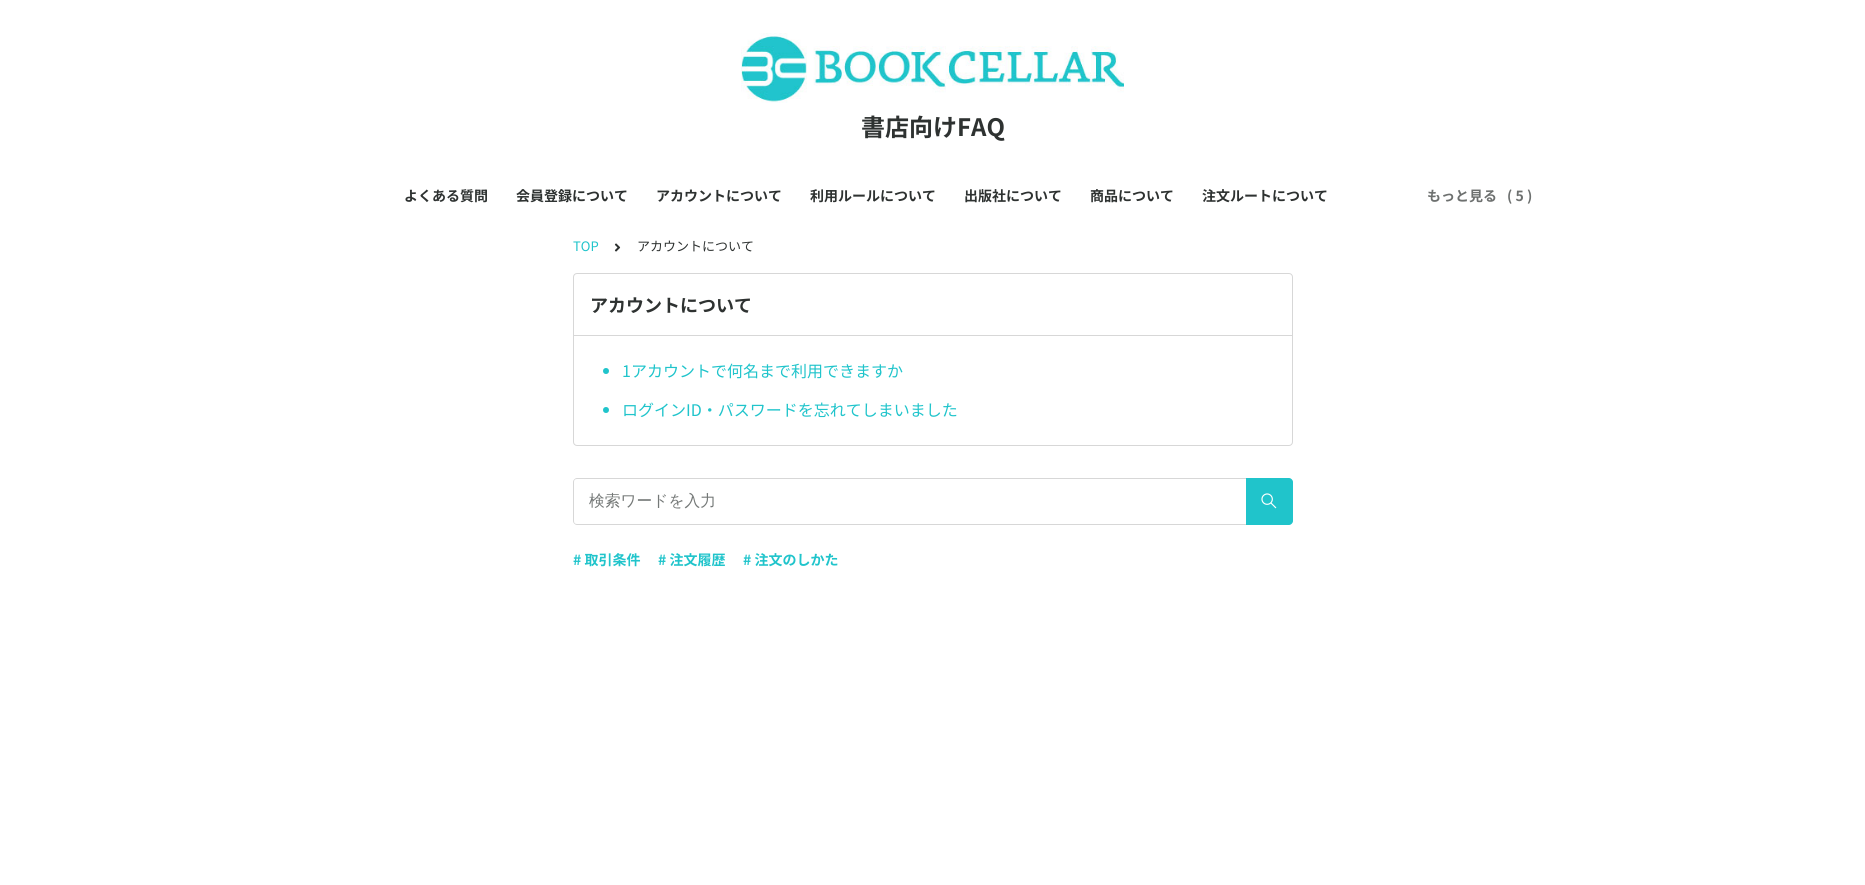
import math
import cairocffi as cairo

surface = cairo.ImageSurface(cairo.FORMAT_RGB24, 1865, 885)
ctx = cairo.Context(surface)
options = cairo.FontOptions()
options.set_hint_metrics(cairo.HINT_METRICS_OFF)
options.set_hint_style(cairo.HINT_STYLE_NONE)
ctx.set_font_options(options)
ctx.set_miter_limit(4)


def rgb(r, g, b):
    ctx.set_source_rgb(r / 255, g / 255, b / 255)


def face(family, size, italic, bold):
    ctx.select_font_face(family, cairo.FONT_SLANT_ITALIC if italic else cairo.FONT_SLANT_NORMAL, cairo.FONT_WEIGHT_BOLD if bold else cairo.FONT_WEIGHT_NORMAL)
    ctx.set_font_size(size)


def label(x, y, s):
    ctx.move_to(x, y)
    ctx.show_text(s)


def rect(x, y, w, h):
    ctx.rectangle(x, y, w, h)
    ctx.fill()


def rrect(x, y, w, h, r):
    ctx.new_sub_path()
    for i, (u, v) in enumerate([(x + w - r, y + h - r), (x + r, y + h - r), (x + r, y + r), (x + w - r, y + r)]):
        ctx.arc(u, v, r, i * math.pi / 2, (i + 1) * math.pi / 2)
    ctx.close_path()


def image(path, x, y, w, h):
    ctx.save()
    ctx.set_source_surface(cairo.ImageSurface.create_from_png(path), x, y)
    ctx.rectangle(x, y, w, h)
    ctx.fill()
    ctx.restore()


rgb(255, 255, 255)
ctx.paint()
image('image0.png', 741, 33, 383, 70)
face('Noto Sans JP', 24, 0, 1)
rgb(46, 50, 49)
label(861, 136, '書店向けFAQ')
face('Noto Sans JP', 14, 0, 1)
label(404, 201, 'よくある質問')
label(516, 201, '会員登録について')
label(656, 201, 'アカウントについて')
label(810, 201, '利用ルールについて')
label(964, 201, '出版社について')
label(1090, 201, '商品について')
label(1202, 201, '注文ルートについて')
rgb(109, 112, 111)
label(1427, 201, 'もっと見る')
label(1507, 201, '( 5 )')
face('Noto Sans JP', 13, 0, 0)
rgb(32, 196, 203)
label(573, 251, 'TOP')
image('image1.png', 614, 243, 7, 9)
rgb(46, 50, 49)
label(637, 251, 'アカウントについて')
rrect(573.5, 273.5, 719, 172, 3.5)
rgb(215, 215, 215)
ctx.set_line_width(1)
ctx.stroke()
rect(574, 335, 718, 1)
face('Noto Sans JP', 18, 0, 1)
rgb(46, 50, 49)
label(590, 312, 'アカウントについて')
rgb(32, 196, 203)
ctx.new_path()
ctx.arc(606, 371, 3, 0, 2 * math.pi)
ctx.fill()
face('Noto Sans JP', 16, 0, 0)
label(622, 377, '1アカウントで何名まで利用できますか')
ctx.new_path()
ctx.arc(606, 410, 3, 0, 2 * math.pi)
ctx.fill()
label(622, 416, 'ログインID・パスワードを忘れてしまいました')
rgb(215, 215, 215)
ctx.set_fill_rule(cairo.FILL_RULE_EVEN_ODD)
ctx.new_path()
ctx.move_to(577, 478)
ctx.line_to(1246, 478)
ctx.line_to(1246, 525)
ctx.line_to(577, 525)
ctx.curve_to(575, 525, 573, 523, 573, 521)
ctx.line_to(573, 482)
ctx.curve_to(573, 480, 575, 478, 577, 478)
ctx.close_path()
ctx.move_to(577, 479)
ctx.line_to(1246, 479)
ctx.line_to(1246, 524)
ctx.line_to(577, 524)
ctx.curve_to(575, 524, 574, 523, 574, 521)
ctx.line_to(574, 482)
ctx.curve_to(574, 480, 575, 479, 577, 479)
ctx.close_path()
ctx.fill()
face('WenQuanYi Zen Hei Medium', 15.75, 0, 0)
rgb(116, 120, 119)
label(589, 506, '検索ワードを入力')
rgb(32, 196, 203)
ctx.new_path()
ctx.move_to(1246, 478)
ctx.line_to(1289, 478)
ctx.curve_to(1291, 478, 1293, 480, 1293, 482)
ctx.line_to(1293, 521)
ctx.curve_to(1293, 523, 1291, 525, 1289, 525)
ctx.line_to(1246, 525)
ctx.close_path()
ctx.fill()
image('image2.png', 1261, 493, 16, 16)
face('Noto Sans JP', 14, 0, 1)
label(573, 565, '# 取引条件')
label(658, 565, '# 注文履歴')
label(743, 565, '# 注文のしかた')
surface.write_to_png('render.png')
